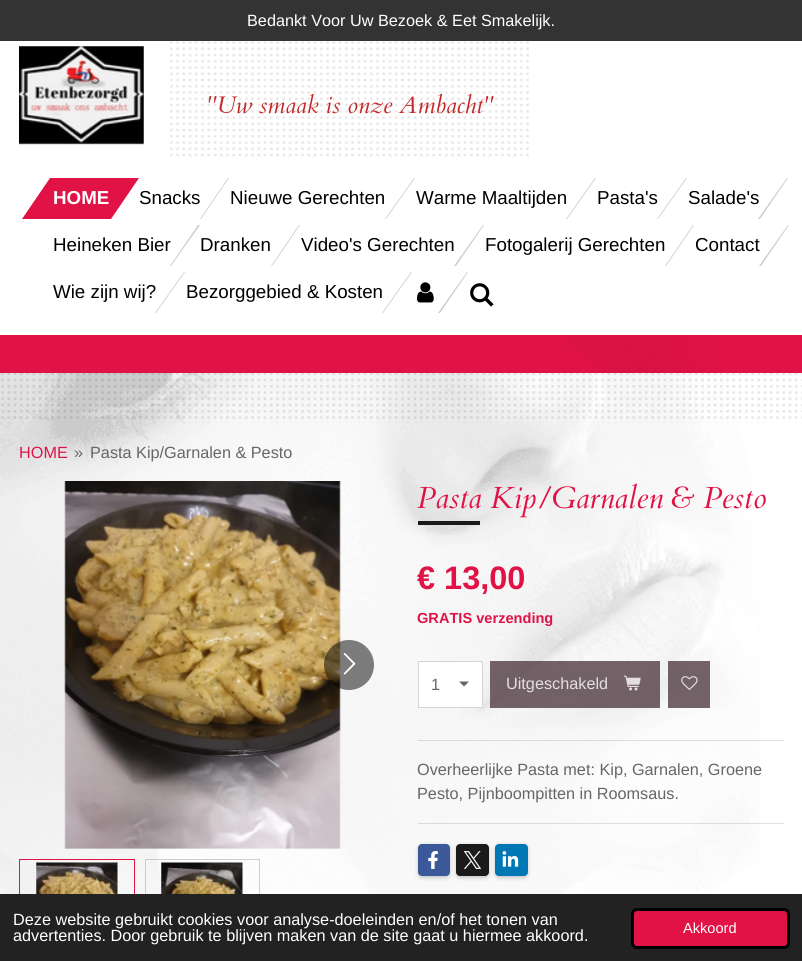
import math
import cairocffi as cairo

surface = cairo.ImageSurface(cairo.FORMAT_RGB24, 802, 961)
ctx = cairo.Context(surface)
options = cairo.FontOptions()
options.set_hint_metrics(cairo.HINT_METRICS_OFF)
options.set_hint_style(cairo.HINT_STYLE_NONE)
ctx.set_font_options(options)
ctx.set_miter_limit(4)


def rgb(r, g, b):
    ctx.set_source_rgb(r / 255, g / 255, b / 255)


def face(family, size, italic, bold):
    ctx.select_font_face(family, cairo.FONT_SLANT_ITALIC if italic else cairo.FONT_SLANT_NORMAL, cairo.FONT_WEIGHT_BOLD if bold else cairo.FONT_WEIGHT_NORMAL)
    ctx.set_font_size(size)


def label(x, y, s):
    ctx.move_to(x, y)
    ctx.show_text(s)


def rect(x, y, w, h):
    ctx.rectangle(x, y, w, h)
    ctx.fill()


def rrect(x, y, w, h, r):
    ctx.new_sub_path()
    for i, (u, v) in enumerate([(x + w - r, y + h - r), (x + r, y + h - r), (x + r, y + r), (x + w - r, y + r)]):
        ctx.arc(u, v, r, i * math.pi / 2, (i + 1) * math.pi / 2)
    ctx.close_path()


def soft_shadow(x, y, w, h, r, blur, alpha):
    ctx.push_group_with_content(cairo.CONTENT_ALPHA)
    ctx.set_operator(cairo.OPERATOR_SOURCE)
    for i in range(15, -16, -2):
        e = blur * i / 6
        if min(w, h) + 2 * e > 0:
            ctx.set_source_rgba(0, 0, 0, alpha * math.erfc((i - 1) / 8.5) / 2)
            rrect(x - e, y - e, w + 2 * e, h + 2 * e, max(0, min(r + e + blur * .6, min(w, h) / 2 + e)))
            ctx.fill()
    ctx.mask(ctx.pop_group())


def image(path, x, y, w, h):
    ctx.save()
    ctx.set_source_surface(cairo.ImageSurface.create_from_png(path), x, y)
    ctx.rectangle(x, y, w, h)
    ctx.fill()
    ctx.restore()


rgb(255, 255, 255)
ctx.paint()
rgb(51, 51, 51)
rect(0, 0, 802, 41)
face('Liberation Sans', 16.25, 0, 0)
rgb(255, 255, 255)
label(247, 26, 'Bedankt Voor Uw Bezoek & Eet Smakelijk.')
image('image0.png', 19, 46, 125, 99)
image('image1.png', 170, 41, 359, 116)
face('Cardo', 24, 1, 0)
rgb(196, 39, 39)
label(206, 113, '\'\'Uw smaak is onze Ambacht\'\'')
rgb(225, 18, 70)
ctx.new_path()
ctx.move_to(50, 178)
ctx.line_to(139, 178)
ctx.line_to(111, 219)
ctx.line_to(22, 219)
ctx.close_path()
ctx.fill()
face('Liberation Sans', 18.75, 0, 1)
rgb(255, 255, 255)
label(53, 204, 'HOME')
face('Liberation Sans', 18.75, 0, 0)
rgb(0, 0, 0)
label(139, 204, 'Snacks')
rgb(204, 204, 204)
ctx.new_path()
ctx.move_to(228, 178)
ctx.line_to(229, 178)
ctx.line_to(201, 219)
ctx.line_to(200, 219)
ctx.close_path()
ctx.fill()
rgb(0, 0, 0)
label(230, 204, 'Nieuwe Gerechten')
rgb(204, 204, 204)
ctx.new_path()
ctx.move_to(414, 178)
ctx.line_to(415, 178)
ctx.line_to(386, 219)
ctx.line_to(385, 219)
ctx.close_path()
ctx.fill()
rgb(0, 0, 0)
label(416, 204, 'Warme Maaltijden')
rgb(204, 204, 204)
ctx.new_path()
ctx.move_to(595, 178)
ctx.line_to(596, 178)
ctx.line_to(567, 219)
ctx.line_to(566, 219)
ctx.close_path()
ctx.fill()
rgb(0, 0, 0)
label(597, 204, 'Pasta\'s')
rgb(204, 204, 204)
ctx.new_path()
ctx.move_to(686, 178)
ctx.line_to(687, 178)
ctx.line_to(658, 219)
ctx.line_to(657, 219)
ctx.close_path()
ctx.fill()
ctx.new_path()
ctx.move_to(787, 178)
ctx.line_to(788, 178)
ctx.line_to(760, 219)
ctx.line_to(758, 219)
ctx.close_path()
ctx.fill()
rgb(0, 0, 0)
label(688, 204, 'Salade\'s')
label(53, 251, 'Heineken Bier')
rgb(204, 204, 204)
ctx.new_path()
ctx.move_to(198, 225)
ctx.line_to(200, 225)
ctx.line_to(171, 266)
ctx.line_to(170, 266)
ctx.close_path()
ctx.fill()
rgb(0, 0, 0)
label(200, 251, 'Dranken')
rgb(204, 204, 204)
ctx.new_path()
ctx.move_to(299, 225)
ctx.line_to(300, 225)
ctx.line_to(272, 266)
ctx.line_to(271, 266)
ctx.close_path()
ctx.fill()
rgb(0, 0, 0)
label(301, 251, 'Video\'s Gerechten')
rgb(204, 204, 204)
ctx.new_path()
ctx.move_to(483, 225)
ctx.line_to(484, 225)
ctx.line_to(456, 266)
ctx.line_to(454, 266)
ctx.close_path()
ctx.fill()
rgb(0, 0, 0)
label(485, 251, 'Fotogalerij Gerechten')
rgb(204, 204, 204)
ctx.new_path()
ctx.move_to(693, 225)
ctx.line_to(694, 225)
ctx.line_to(666, 266)
ctx.line_to(665, 266)
ctx.close_path()
ctx.fill()
ctx.new_path()
ctx.move_to(788, 225)
ctx.line_to(789, 225)
ctx.line_to(761, 266)
ctx.line_to(759, 266)
ctx.close_path()
ctx.fill()
rgb(0, 0, 0)
label(695, 251, 'Contact')
label(53, 298, 'Wie zijn wij?')
rgb(204, 204, 204)
ctx.new_path()
ctx.move_to(184, 272)
ctx.line_to(185, 272)
ctx.line_to(156, 313)
ctx.line_to(155, 313)
ctx.close_path()
ctx.fill()
rgb(0, 0, 0)
label(186, 298, 'Bezorggebied & Kosten')
rgb(204, 204, 204)
ctx.new_path()
ctx.move_to(411, 272)
ctx.line_to(412, 272)
ctx.line_to(383, 313)
ctx.line_to(382, 313)
ctx.close_path()
ctx.fill()
image('image2.png', 417, 282, 17, 21)
ctx.new_path()
ctx.move_to(467, 272)
ctx.line_to(468, 272)
ctx.line_to(440, 313)
ctx.line_to(438, 313)
ctx.close_path()
ctx.fill()
image('image3.png', 470, 283, 24, 24)
image('image4.png', 1, 373, 801, 50)
rgb(225, 18, 70)
rect(561, 335, 241, 38)
image('image5.png', 0, 335, 760, 559)
rect(0, 335, 561, 38)
ctx.new_path()
ctx.move_to(561, 372.5)
ctx.line_to(561, 335)
ctx.line_to(599, 372.5)
ctx.close_path()
ctx.fill()
face('Liberation Sans', 16.25, 0, 0)
label(19, 458, 'HOME')
rgb(102, 102, 102)
label(74, 458, '»')
label(90, 458, 'Pasta Kip/Garnalen & Pesto')
image('image6.png', 64, 481, 277, 368)
ctx.set_source_rgba(0, 0, 0, 0.5)
ctx.arc(349, 665, 25, 0, 2 * math.pi)
ctx.fill()
image('image7.png', 343, 653, 13, 22)
ctx.rectangle(19.5, 859.5, 115, 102)
rgb(225, 18, 70)
ctx.set_line_width(1)
ctx.stroke()
image('image8.png', 36, 862, 82, 32)
ctx.rectangle(145.5, 859.5, 114, 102)
ctx.set_source_rgba(0.4, 0.4, 0.4, 0.3)
ctx.stroke()
image('image9.png', 161, 862, 82, 32)
face('Cardo', 30.6, 1, 0)
rgb(225, 18, 70)
label(417, 508, 'Pasta Kip/Garnalen & Pesto')
rgb(26, 26, 26)
rect(418, 521, 62, 4)
face('Liberation Sans', 32.5, 0, 1)
rgb(225, 18, 70)
label(417, 589, '€ 13,00')
face('Liberation Sans', 14.6, 0, 1)
label(417, 623, 'GRATIS verzending')
rgb(255, 255, 255)
rect(419, 662, 63, 45)
rgb(102, 102, 102)
ctx.new_path()
ctx.move_to(464, 686.5)
ctx.line_to(459, 681.5)
ctx.line_to(469, 681.5)
ctx.close_path()
ctx.fill()
ctx.rectangle(418.5, 661.5, 64, 46)
rgb(211, 211, 211)
ctx.stroke()
face('Liberation Sans', 16.25, 0, 0)
rgb(102, 102, 102)
label(431, 690, '1')
ctx.set_source_rgba(0.322, 0.239, 0.259, 0.8)
rect(490, 661, 170, 47)
rgb(227, 223, 224)
label(506, 689, 'Uitgeschakeld')
image('image10.png', 623, 675, 18, 16)
ctx.set_source_rgba(0.322, 0.239, 0.259, 0.8)
rect(668, 661, 42, 47)
image('image11.png', 681, 676, 17, 14)
ctx.set_source_rgba(0.4, 0.4, 0.4, 0.2)
rect(418, 740, 366, 1)
rgb(102, 102, 102)
label(417, 775, 'Overheerlijke Pasta met: Kip, Garnalen, Groene')
label(417, 799, 'Pesto, Pijnboompitten in Roomsaus.')
ctx.set_source_rgba(0.4, 0.4, 0.4, 0.2)
rect(418, 823, 366, 1)
rgb(0, 0, 0)
soft_shadow(418, 845, 32, 33, 4, 2, 0.2)
rgb(59, 89, 152)
rrect(418, 844, 32, 32, 4)
ctx.fill()
image('image12.png', 428, 851, 10, 18)
rgb(0, 0, 0)
soft_shadow(456, 845, 33, 33, 4, 2, 0.2)
rgb(26, 26, 26)
rrect(456, 844, 33, 32, 4)
ctx.fill()
image('image13.png', 463, 851, 19, 18)
rgb(0, 0, 0)
soft_shadow(495, 845, 33, 33, 4, 2, 0.2)
rgb(0, 119, 181)
rrect(495, 844, 33, 32, 4)
ctx.fill()
image('image14.png', 502, 851, 17, 16)
rgb(34, 34, 34)
rect(0, 894, 802, 67)
rgb(255, 255, 255)
label(13, 925, 'Deze website gebruikt cookies voor analyse-doeleinden en/of het tonen van')
label(13, 941, 'advertenties. Door gebruik te blijven maken van de site gaat u hiermee akkoord.')
rgb(225, 18, 70)
rrect(632.5, 909.5, 156, 38, 4.5)
ctx.fill_preserve()
rgb(0, 0, 0)
ctx.set_line_width(3)
ctx.stroke()
face('Liberation Sans', 14.6, 0, 0)
rgb(255, 255, 255)
label(683, 933, 'Akkoord')
surface.write_to_png('render.png')
